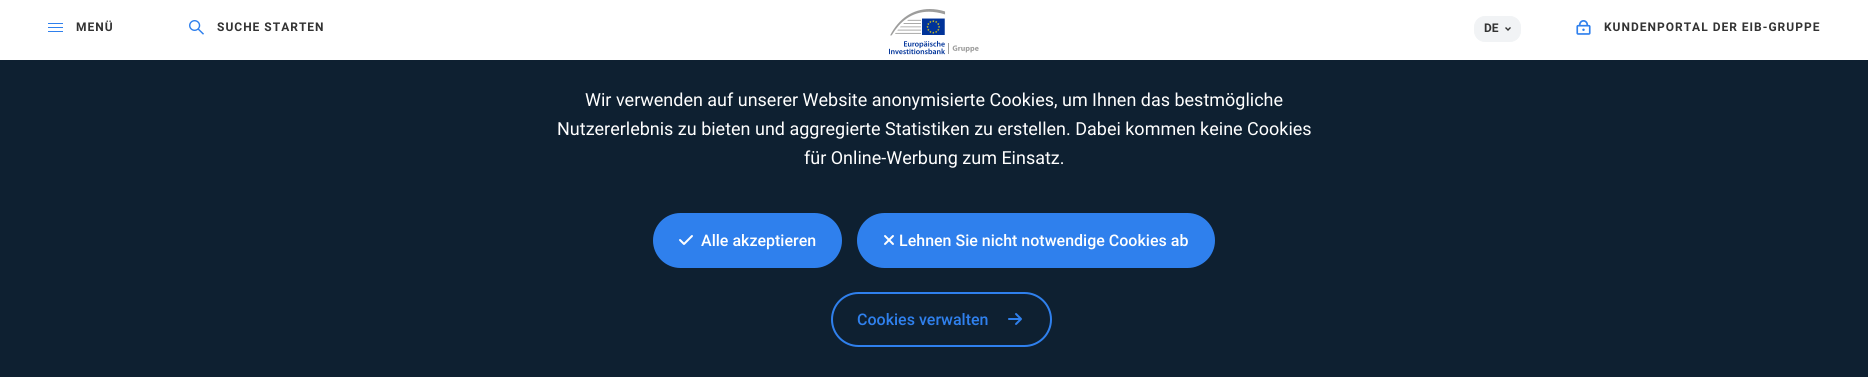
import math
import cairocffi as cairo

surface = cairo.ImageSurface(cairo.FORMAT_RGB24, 1868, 377)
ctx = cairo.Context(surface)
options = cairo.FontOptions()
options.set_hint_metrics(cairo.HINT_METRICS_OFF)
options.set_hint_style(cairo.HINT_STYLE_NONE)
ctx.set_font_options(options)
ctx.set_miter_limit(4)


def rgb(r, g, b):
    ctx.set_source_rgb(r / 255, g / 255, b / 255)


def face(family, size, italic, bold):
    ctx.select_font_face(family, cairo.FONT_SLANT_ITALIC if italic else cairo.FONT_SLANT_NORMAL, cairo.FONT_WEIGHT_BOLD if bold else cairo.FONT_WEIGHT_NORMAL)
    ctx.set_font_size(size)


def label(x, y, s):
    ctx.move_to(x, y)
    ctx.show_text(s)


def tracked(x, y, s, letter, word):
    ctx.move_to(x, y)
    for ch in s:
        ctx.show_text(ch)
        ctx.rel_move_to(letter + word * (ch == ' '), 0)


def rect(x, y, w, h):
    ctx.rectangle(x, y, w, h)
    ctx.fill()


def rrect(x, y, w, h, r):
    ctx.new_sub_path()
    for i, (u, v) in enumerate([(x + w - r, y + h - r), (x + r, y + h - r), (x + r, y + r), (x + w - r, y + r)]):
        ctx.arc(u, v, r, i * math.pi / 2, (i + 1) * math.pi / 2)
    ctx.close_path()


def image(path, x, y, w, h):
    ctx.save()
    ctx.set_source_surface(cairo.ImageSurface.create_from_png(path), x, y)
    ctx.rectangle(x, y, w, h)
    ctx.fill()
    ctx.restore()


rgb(14, 32, 49)
ctx.paint()
rgb(255, 255, 255)
rect(0, 0, 1868, 60)
rgb(47, 128, 237)
rect(48, 23, 15, 1)
face('Roboto', 12, 0, 1)
rgb(51, 51, 51)
tracked(76, 31, 'MENÜ', 1, 0)
rgb(47, 128, 237)
rect(48, 27, 15, 1)
rect(48, 31, 15, 1)
image('image0.png', 189, 20, 15, 15)
rgb(51, 51, 51)
tracked(217, 31, 'SUCHE STARTEN', 1, 0)
image('image1.png', 889, 9, 90, 46)
rgb(241, 243, 245)
rrect(1474.5, 16.5, 46, 25, 10.5)
ctx.fill_preserve()
ctx.set_line_width(1)
ctx.stroke()
rgb(51, 51, 51)
label(1484, 32, 'DE')
image('image2.png', 1505, 27, 6, 4)
image('image3.png', 1576, 20, 15, 15)
tracked(1604, 31, 'KUNDENPORTAL DER EIB-GRUPPE', 1, 0)
face('Roboto', 18, 0, 0)
rgb(255, 255, 255)
label(585, 106, 'Wir verwenden auf unserer Website anonymisierte Cookies, um Ihnen das bestmögliche')
label(557, 135, 'Nutzererlebnis zu bieten und aggregierte Statistiken zu erstellen. Dabei kommen keine Cookies')
label(804, 164, 'für Online-Werbung zum Einsatz.')
rgb(47, 128, 237)
rrect(654, 214, 187, 53, 26.5)
ctx.fill_preserve()
ctx.set_line_width(2)
ctx.stroke()
image('image4.png', 679, 235, 14, 10)
face('Roboto Medium', 16, 0, 0)
rgb(255, 255, 255)
label(701, 246, 'Alle akzeptieren')
rgb(47, 128, 237)
rrect(858, 214, 356, 53, 26.5)
ctx.fill_preserve()
ctx.stroke()
image('image5.png', 884, 235, 10, 10)
rgb(255, 255, 255)
label(899, 246, 'Lehnen Sie nicht notwendige Cookies ab')
rrect(832, 293, 219, 53, 26.5)
rgb(47, 128, 237)
ctx.stroke()
label(857, 325, 'Cookies verwalten')
image('image6.png', 1008, 313, 14, 12)
surface.write_to_png('render.png')
